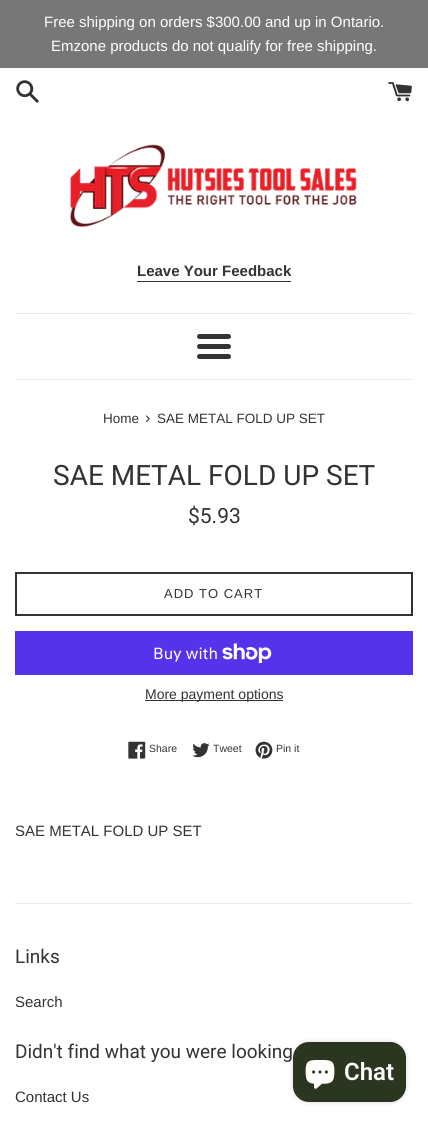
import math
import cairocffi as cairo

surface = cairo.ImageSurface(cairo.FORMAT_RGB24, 428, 1123)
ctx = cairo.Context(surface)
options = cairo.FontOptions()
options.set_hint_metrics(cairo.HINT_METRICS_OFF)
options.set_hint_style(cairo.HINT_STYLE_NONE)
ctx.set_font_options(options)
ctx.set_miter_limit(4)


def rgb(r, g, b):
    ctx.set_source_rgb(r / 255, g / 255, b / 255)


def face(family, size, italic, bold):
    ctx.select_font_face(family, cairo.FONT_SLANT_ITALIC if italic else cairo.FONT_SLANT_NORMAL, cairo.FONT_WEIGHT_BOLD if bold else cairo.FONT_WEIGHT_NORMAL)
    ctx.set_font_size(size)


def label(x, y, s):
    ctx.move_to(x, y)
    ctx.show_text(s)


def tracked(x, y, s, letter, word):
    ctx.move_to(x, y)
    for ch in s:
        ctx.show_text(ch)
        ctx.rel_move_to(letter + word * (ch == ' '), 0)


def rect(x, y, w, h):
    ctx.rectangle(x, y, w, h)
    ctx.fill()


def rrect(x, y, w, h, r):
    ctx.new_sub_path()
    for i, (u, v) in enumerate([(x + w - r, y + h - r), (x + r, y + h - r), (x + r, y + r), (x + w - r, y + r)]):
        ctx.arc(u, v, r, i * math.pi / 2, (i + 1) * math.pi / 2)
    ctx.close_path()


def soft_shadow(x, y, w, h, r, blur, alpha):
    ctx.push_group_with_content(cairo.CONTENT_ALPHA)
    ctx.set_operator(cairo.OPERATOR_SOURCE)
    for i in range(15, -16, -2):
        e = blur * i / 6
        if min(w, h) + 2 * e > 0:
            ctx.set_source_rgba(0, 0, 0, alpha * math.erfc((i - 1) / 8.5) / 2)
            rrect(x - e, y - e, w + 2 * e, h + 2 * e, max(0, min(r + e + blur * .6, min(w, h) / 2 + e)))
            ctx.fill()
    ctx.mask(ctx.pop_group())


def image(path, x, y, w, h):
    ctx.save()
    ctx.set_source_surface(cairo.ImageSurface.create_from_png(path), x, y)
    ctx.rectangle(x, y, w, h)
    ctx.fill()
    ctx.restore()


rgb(255, 255, 255)
ctx.paint()
rgb(119, 119, 119)
rect(0, 0, 428, 68)
face('Liberation Sans', 15, 0, 0)
rgb(255, 255, 255)
label(44, 27, 'Free shipping on orders $300.00 and up in Ontario.')
label(51, 51, 'Emzone products do not qualify for free shipping.')
image('image0.png', 16, 80, 23, 23)
image('image1.png', 388, 82, 24, 20)
image('image2.png', 70, 144, 287, 84)
face('Liberation Sans', 15, 0, 1)
rgb(51, 51, 51)
label(137, 276, 'Leave Your Feedback')
rect(137, 281, 154, 1)
rgb(232, 232, 232)
rect(15, 313, 398, 1)
rgb(51, 51, 51)
rrect(197, 334, 34, 5, 2.5)
ctx.fill()
rrect(197, 344, 34, 5, 2.5)
ctx.fill()
rrect(197, 354, 34, 5, 2.5)
ctx.fill()
rgb(232, 232, 232)
rect(15, 379, 398, 1)
face('Liberation Sans', 13.5, 0, 0)
rgb(51, 51, 51)
label(103, 423, 'Home')
face('Liberation Sans', 16, 0, 0)
label(145, 423, '›')
face('Liberation Sans', 13.5, 0, 0)
label(157, 423, 'SAE METAL FOLD UP SET')
face('Roboto', 28, 0, 0)
label(53, 485, 'SAE METAL FOLD UP SET')
face('Roboto', 21, 0, 0)
label(188, 523, '$5.93')
ctx.rectangle(16, 573, 396, 42)
ctx.stroke()
face('Liberation Sans', 13, 0, 0)
tracked(164, 598, 'ADD TO CART', 1, 0)
rgb(84, 51, 235)
rect(15, 631, 398, 44)
face('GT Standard', 16, 0, 0)
rgb(255, 255, 255)
label(153, 659, 'Buy with')
image('image3.png', 222, 643, 50, 20)
rgb(51, 51, 51)
rect(145, 700, 138, 1)
face('Liberation Sans', 14, 0, 0)
label(145, 699, 'More payment options')
image('image4.png', 128, 741, 18, 18)
face('Liberation Sans', 10.5, 0, 0)
label(149, 752, 'Share')
image('image5.png', 192, 743, 18, 15)
label(213, 752, 'Tweet')
image('image6.png', 255, 741, 18, 18)
label(276, 752, 'Pin it')
face('Liberation Sans', 15, 0, 0)
label(15, 836, 'SAE METAL FOLD UP SET')
rgb(232, 232, 232)
rect(15, 903, 398, 1)
face('Roboto', 19, 0, 0)
rgb(51, 51, 51)
label(15, 963, 'Links')
face('Liberation Sans', 15, 0, 0)
label(15, 1007, 'Search')
face('Roboto', 19, 0, 0)
label(15, 1058, 'Didn\'t find what you were looking')
face('Liberation Sans', 15, 0, 0)
label(15, 1102, 'Contact Us')
rgb(0, 0, 0)
soft_shadow(293, 1042, 113, 60, 16, 2.5, 0.15)
rgb(42, 54, 32)
rrect(293, 1042, 113, 60, 16)
ctx.fill()
image('image7.png', 305, 1060, 30, 29)
face('Roboto SemiBold', 24, 0, 0)
rgb(255, 255, 255)
label(344, 1080, 'Chat')
surface.write_to_png('render.png')
